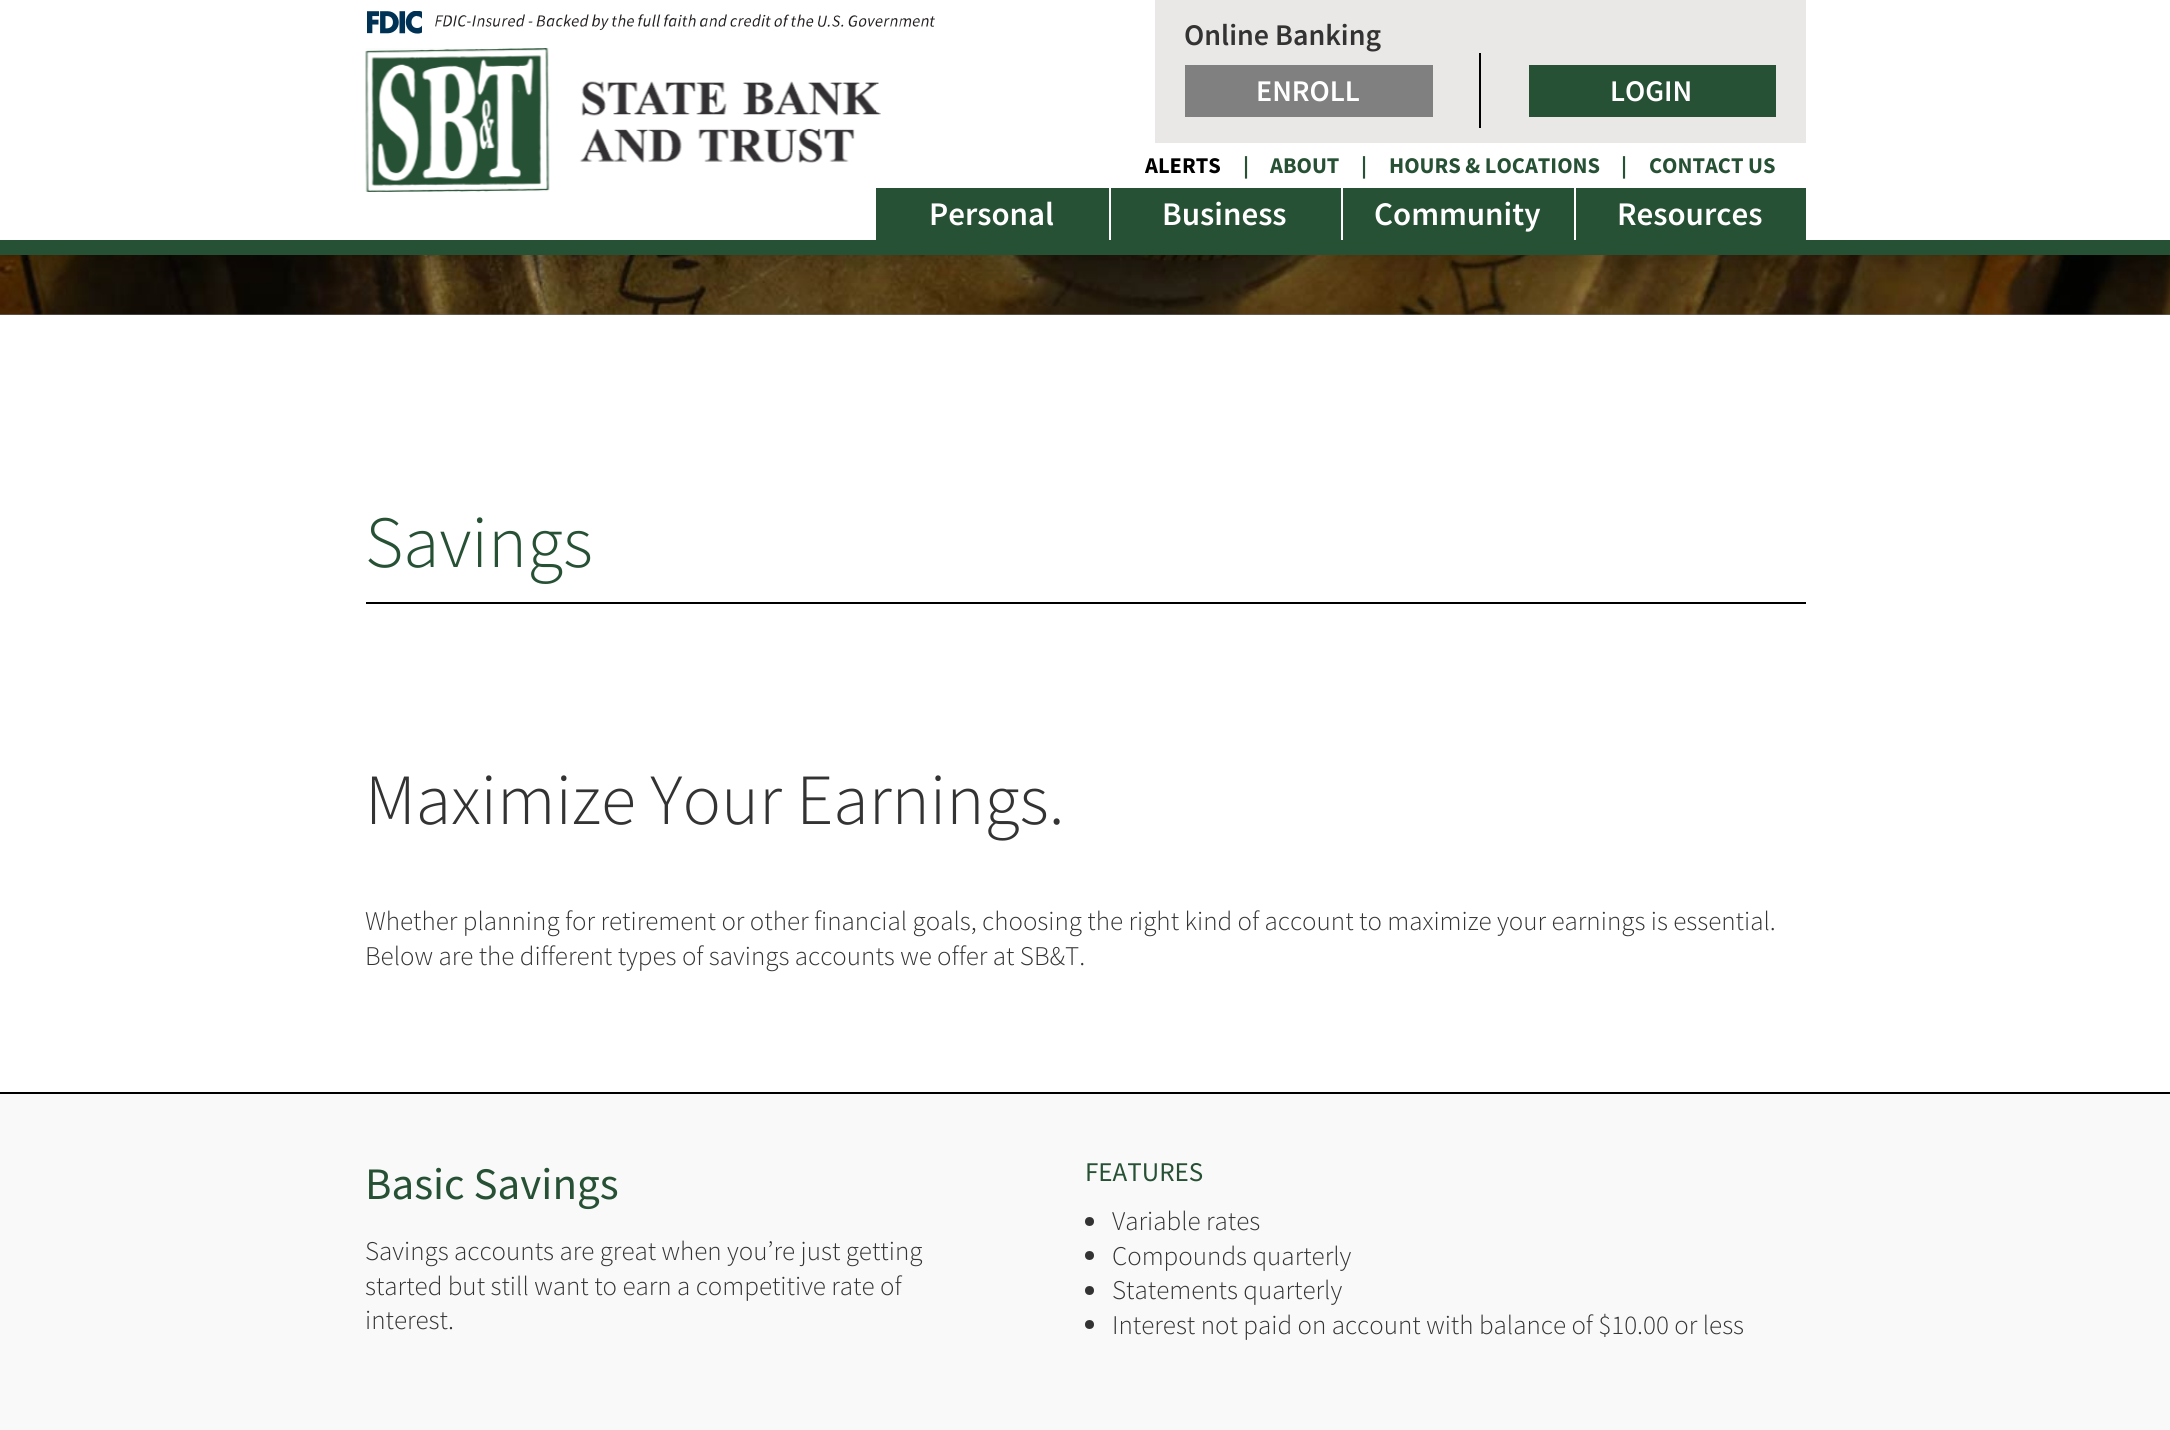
import math
import cairocffi as cairo

surface = cairo.ImageSurface(cairo.FORMAT_RGB24, 2170, 1430)
ctx = cairo.Context(surface)
options = cairo.FontOptions()
options.set_hint_metrics(cairo.HINT_METRICS_OFF)
options.set_hint_style(cairo.HINT_STYLE_NONE)
ctx.set_font_options(options)
ctx.set_miter_limit(4)


def rgb(r, g, b):
    ctx.set_source_rgb(r / 255, g / 255, b / 255)


def face(family, size, italic, bold):
    ctx.select_font_face(family, cairo.FONT_SLANT_ITALIC if italic else cairo.FONT_SLANT_NORMAL, cairo.FONT_WEIGHT_BOLD if bold else cairo.FONT_WEIGHT_NORMAL)
    ctx.set_font_size(size)


def label(x, y, s):
    ctx.move_to(x, y)
    ctx.show_text(s)


def rect(x, y, w, h):
    ctx.rectangle(x, y, w, h)
    ctx.fill()


def rrect(x, y, w, h, r):
    ctx.new_sub_path()
    for i, (u, v) in enumerate([(x + w - r, y + h - r), (x + r, y + h - r), (x + r, y + r), (x + w - r, y + r)]):
        ctx.arc(u, v, r, i * math.pi / 2, (i + 1) * math.pi / 2)
    ctx.close_path()


def soft_shadow(x, y, w, h, r, blur, alpha):
    ctx.push_group_with_content(cairo.CONTENT_ALPHA)
    ctx.set_operator(cairo.OPERATOR_SOURCE)
    for i in range(15, -16, -2):
        e = blur * i / 6
        if min(w, h) + 2 * e > 0:
            ctx.set_source_rgba(0, 0, 0, alpha * math.erfc((i - 1) / 8.5) / 2)
            rrect(x - e, y - e, w + 2 * e, h + 2 * e, max(0, min(r + e + blur * .6, min(w, h) / 2 + e)))
            ctx.fill()
    ctx.mask(ctx.pop_group())


def image(path, x, y, w, h):
    ctx.save()
    ctx.set_source_surface(cairo.ImageSurface.create_from_png(path), x, y)
    ctx.rectangle(x, y, w, h)
    ctx.fill()
    ctx.restore()


rgb(255, 255, 255)
ctx.paint()
rgb(119, 119, 119)
rect(0, 314, 2170, 1)
image('image2.png', 0, 255, 2170, 60)
rgb(0, 0, 0)
soft_shadow(-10, -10, 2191, 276, 0, 11, 0.16)
rgb(255, 255, 255)
rect(0, 0, 2170, 240)
rgb(39, 81, 53)
rect(0, 240, 2170, 15)
image('image0.png', 367, 11, 568, 23)
image('image1.png', 365, 48, 516, 144)
rgb(234, 232, 230)
rect(1155, 0, 651, 143)
face('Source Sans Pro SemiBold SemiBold', 30, 0, 0)
rgb(51, 51, 51)
label(1184, 45, 'Online Banking')
rgb(128, 128, 128)
rect(1185, 65, 248, 52)
rgb(255, 255, 255)
label(1256, 101, 'ENROLL')
rgb(0, 0, 0)
rect(1479, 53, 2, 75)
rgb(39, 81, 53)
rect(1529, 65, 247, 52)
rgb(255, 255, 255)
label(1610, 101, 'LOGIN')
face('Source Sans Pro', 22.5, 0, 1)
rgb(0, 0, 0)
label(1145, 173, 'ALERTS')
rgb(39, 81, 53)
label(1243, 173, '|')
label(1270, 173, 'ABOUT')
label(1361, 173, '|')
label(1389, 173, 'HOURS & LOCATIONS')
label(1621, 173, '|')
label(1649, 173, 'CONTACT US')
rect(876, 188, 233, 52)
face('Source Sans Pro SemiBold SemiBold', 33, 0, 0)
rgb(255, 255, 255)
label(929, 225, 'Personal')
rgb(39, 81, 53)
rect(1111, 188, 230, 52)
rgb(255, 255, 255)
label(1162, 225, 'Business')
rgb(39, 81, 53)
rect(1343, 188, 231, 52)
rgb(255, 255, 255)
label(1374, 225, 'Community')
rgb(39, 81, 53)
rect(1576, 188, 230, 52)
rgb(255, 255, 255)
label(1617, 225, 'Resources')
face('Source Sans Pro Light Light', 73.5, 0, 0)
rgb(39, 81, 53)
label(365, 567, 'Savings')
rgb(0, 0, 0)
rect(366, 602, 1440, 2)
face('Source Sans Pro Light Light', 72, 0, 0)
rgb(51, 51, 51)
label(365, 824, 'Maximize Your Earnings.')
face('Source Sans Pro Light Light', 27, 0, 0)
label(365, 930, 'Whether planning for retirement or other financial goals, choosing the right kind of account to maximize your earnings is essential.')
label(365, 965, 'Below are the different types of savings accounts we offer at SB&T.')
rgb(249, 249, 249)
rect(0, 1094, 2170, 336)
rgb(0, 0, 0)
rect(0, 1092, 2170, 2)
face('Source Sans Pro', 45, 0, 0)
rgb(39, 81, 53)
label(365, 1199, 'Basic Savings')
face('Source Sans Pro Light Light', 27, 0, 0)
rgb(51, 51, 51)
label(365, 1260, 'Savings accounts are great when you’re just getting')
label(365, 1295, 'started but still want to earn a competitive rate of')
label(365, 1329, 'interest.')
face('Source Sans Pro', 27, 0, 0)
rgb(39, 81, 53)
label(1085, 1181, 'FEATURES')
rgb(51, 51, 51)
ctx.new_path()
ctx.arc(1089.5, 1221.5, 4.5, 0, 2 * math.pi)
ctx.fill()
face('Source Sans Pro Light Light', 27, 0, 0)
label(1112, 1230, 'Variable rates')
ctx.new_path()
ctx.arc(1089.5, 1255.5, 4.5, 0, 2 * math.pi)
ctx.fill()
label(1112, 1265, 'Compounds quarterly')
ctx.new_path()
ctx.arc(1089.5, 1290.5, 4.5, 0, 2 * math.pi)
ctx.fill()
label(1112, 1299, 'Statements quarterly')
ctx.new_path()
ctx.arc(1089.5, 1324.5, 4.5, 0, 2 * math.pi)
ctx.fill()
label(1112, 1334, 'Interest not paid on account with balance of $10.00 or less')
surface.write_to_png('render.png')
